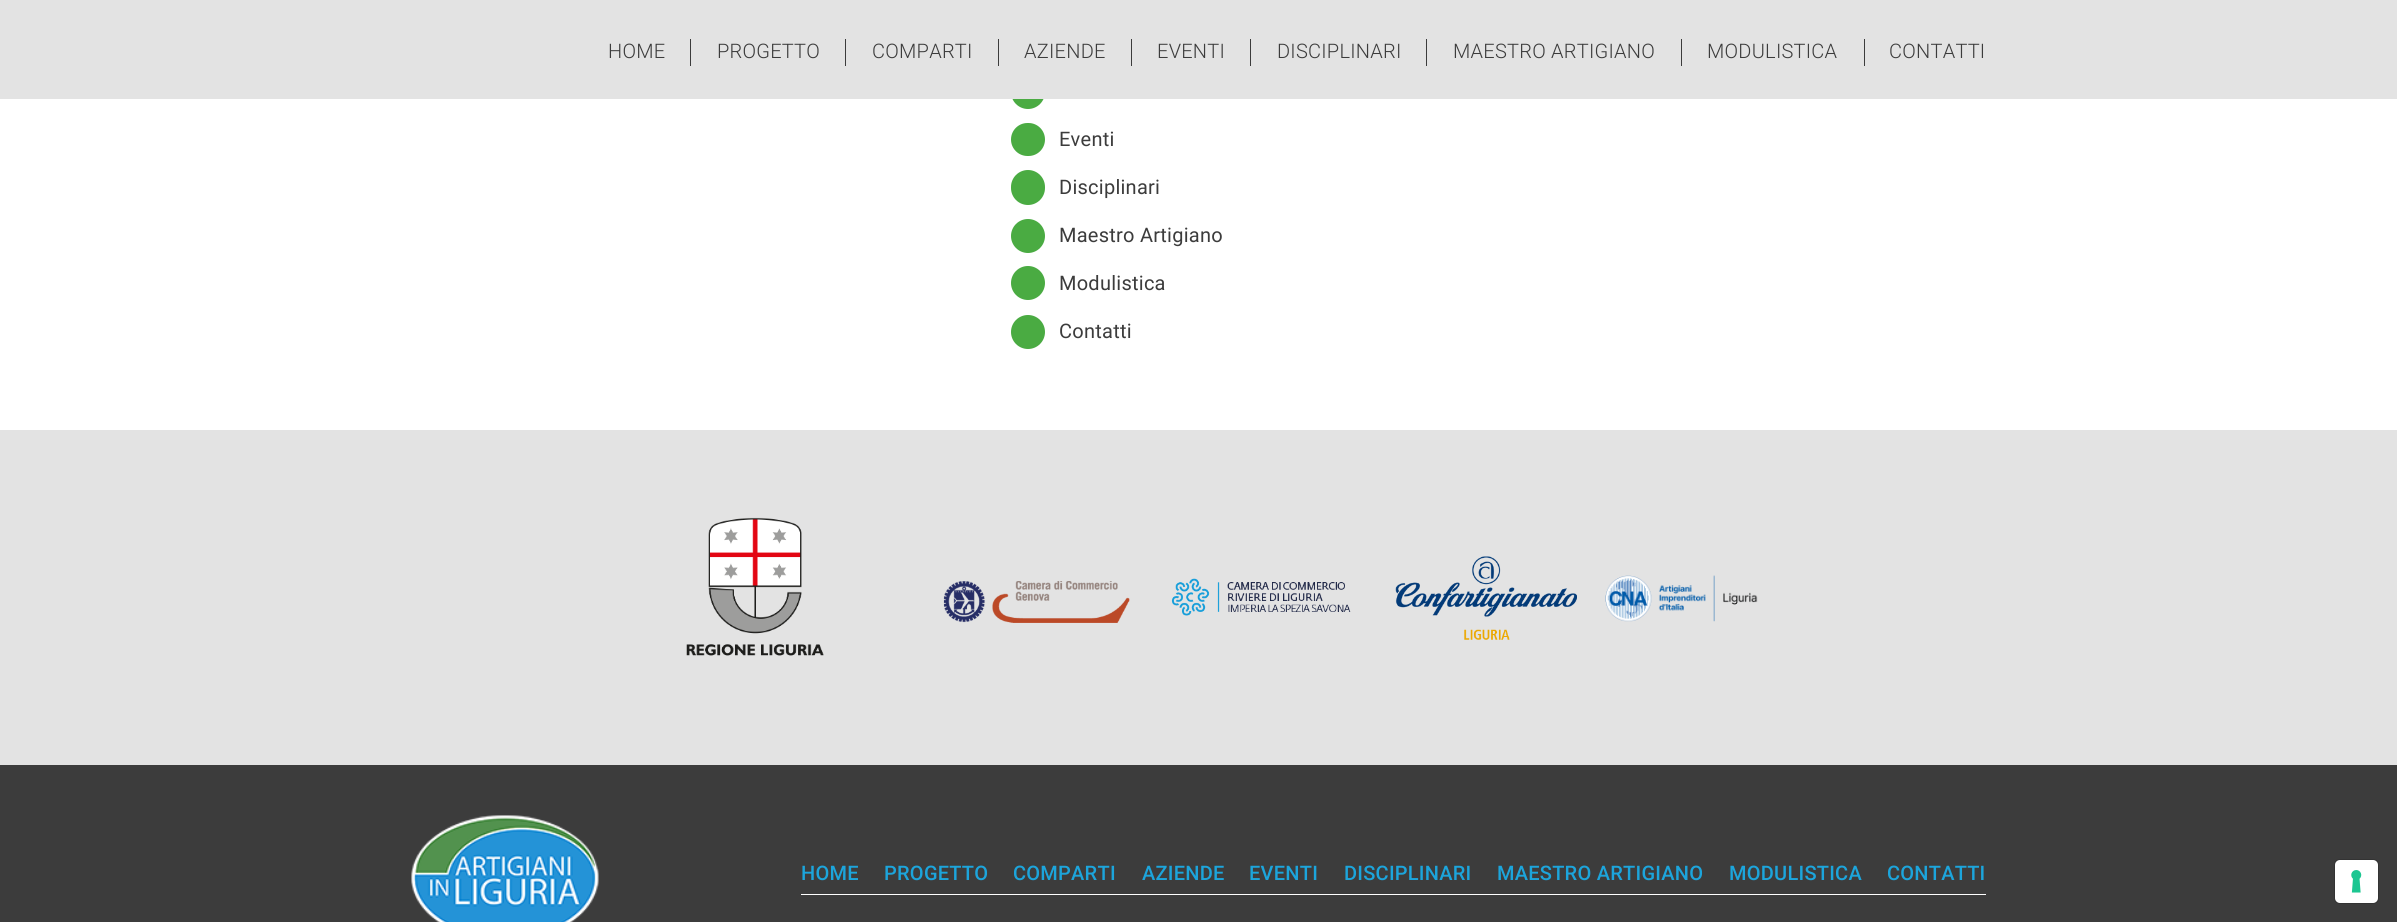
import math
import cairocffi as cairo

surface = cairo.ImageSurface(cairo.FORMAT_RGB24, 2397, 922)
ctx = cairo.Context(surface)
options = cairo.FontOptions()
options.set_hint_metrics(cairo.HINT_METRICS_OFF)
options.set_hint_style(cairo.HINT_STYLE_NONE)
ctx.set_font_options(options)
ctx.set_miter_limit(4)


def rgb(r, g, b):
    ctx.set_source_rgb(r / 255, g / 255, b / 255)


def face(family, size, italic, bold):
    ctx.select_font_face(family, cairo.FONT_SLANT_ITALIC if italic else cairo.FONT_SLANT_NORMAL, cairo.FONT_WEIGHT_BOLD if bold else cairo.FONT_WEIGHT_NORMAL)
    ctx.set_font_size(size)


def tracked(x, y, s, letter, word):
    ctx.move_to(x, y)
    for ch in s:
        ctx.show_text(ch)
        ctx.rel_move_to(letter + word * (ch == ' '), 0)


def rect(x, y, w, h):
    ctx.rectangle(x, y, w, h)
    ctx.fill()


def rrect(x, y, w, h, r):
    ctx.new_sub_path()
    for i, (u, v) in enumerate([(x + w - r, y + h - r), (x + r, y + h - r), (x + r, y + r), (x + w - r, y + r)]):
        ctx.arc(u, v, r, i * math.pi / 2, (i + 1) * math.pi / 2)
    ctx.close_path()


def image(path, x, y, w, h):
    ctx.save()
    ctx.set_source_surface(cairo.ImageSurface.create_from_png(path), x, y)
    ctx.rectangle(x, y, w, h)
    ctx.fill()
    ctx.restore()


rgb(255, 255, 255)
ctx.paint()
rgb(74, 171, 66)
ctx.arc(1028, 92, 17, 0, 2 * math.pi)
ctx.fill()
rgb(227, 227, 227)
rect(0, 0, 2397, 99)
face('Roboto Light', 20, 0, 0)
rgb(60, 60, 60)
tracked(608, 58, 'HOME', 0.25, 0)
rect(690, 39, 1, 27)
tracked(717, 58, 'PROGETTO', 0.25, 0)
rect(845, 39, 1, 27)
tracked(872, 58, 'COMPARTI', 0.25, 0)
rect(998, 39, 1, 27)
tracked(1024, 58, 'AZIENDE', 0.25, 0)
rect(1131, 39, 1, 27)
tracked(1157, 58, 'EVENTI', 0.25, 0)
rect(1250, 39, 1, 27)
tracked(1277, 58, 'DISCIPLINARI', 0.25, 0)
rect(1426, 39, 1, 27)
tracked(1453, 58, 'MAESTRO ARTIGIANO', 0.25, 0)
rect(1681, 39, 1, 27)
tracked(1707, 58, 'MODULISTICA', 0.25, 0)
rect(1864, 39, 1, 27)
tracked(1889, 58, 'CONTATTI', 0.25, 0)
rgb(74, 171, 66)
rrect(1011, 123, 34, 33, 16.5)
ctx.fill()
face('Roboto', 20, 0, 0)
rgb(60, 60, 60)
tracked(1059, 146, 'Eventi', 0.25, 0)
rgb(74, 171, 66)
rrect(1011, 170, 34, 35, 17)
ctx.fill()
rgb(60, 60, 60)
tracked(1059, 194, 'Disciplinari', 0.25, 0)
rgb(74, 171, 66)
ctx.new_path()
ctx.arc(1028, 236, 17, 0, 2 * math.pi)
ctx.fill()
rgb(60, 60, 60)
tracked(1059, 242, 'Maestro Artigiano', 0.25, 0)
rgb(74, 171, 66)
ctx.new_path()
ctx.arc(1028, 283, 17, 0, 2 * math.pi)
ctx.fill()
rgb(60, 60, 60)
tracked(1059, 290, 'Modulistica', 0.25, 0)
rgb(74, 171, 66)
ctx.new_path()
ctx.arc(1028, 332, 17, 0, 2 * math.pi)
ctx.fill()
rgb(60, 60, 60)
tracked(1059, 338, 'Contatti', 0.25, 0)
rgb(227, 227, 227)
rect(0, 430, 2397, 335)
image('image0.png', 686, 517, 138, 139)
image('image1.png', 943, 581, 187, 42)
image('image2.png', 1171, 578, 180, 38)
image('image3.png', 1395, 556, 182, 84)
image('image4.png', 1605, 575, 153, 47)
rgb(60, 60, 60)
rect(0, 765, 2397, 157)
image('image5.png', 411, 815, 188, 107)
face('Roboto Medium', 20, 0, 0)
rgb(28, 165, 220)
tracked(801, 880, 'HOME', 0.25, 0)
rgb(255, 255, 255)
rect(801, 894, 1185, 1)
rgb(28, 165, 220)
tracked(884, 880, 'PROGETTO', 0.25, 0)
tracked(1013, 880, 'COMPARTI', 0.25, 0)
tracked(1142, 880, 'AZIENDE', 0.25, 0)
tracked(1249, 880, 'EVENTI', 0.25, 0)
tracked(1344, 880, 'DISCIPLINARI', 0.25, 0)
tracked(1497, 880, 'MAESTRO ARTIGIANO', 0.25, 0)
tracked(1729, 880, 'MODULISTICA', 0.25, 0)
tracked(1887, 880, 'CONTATTI', 0.25, 0)
rrect(2334.5, 859.5, 44, 44, 5.5)
rgb(51, 51, 51)
ctx.set_line_width(1)
ctx.stroke()
rgb(255, 255, 255)
rrect(2335, 860, 43, 43, 5)
ctx.fill()
image('image6.png', 2351, 870, 11, 23)
surface.write_to_png('render.png')
